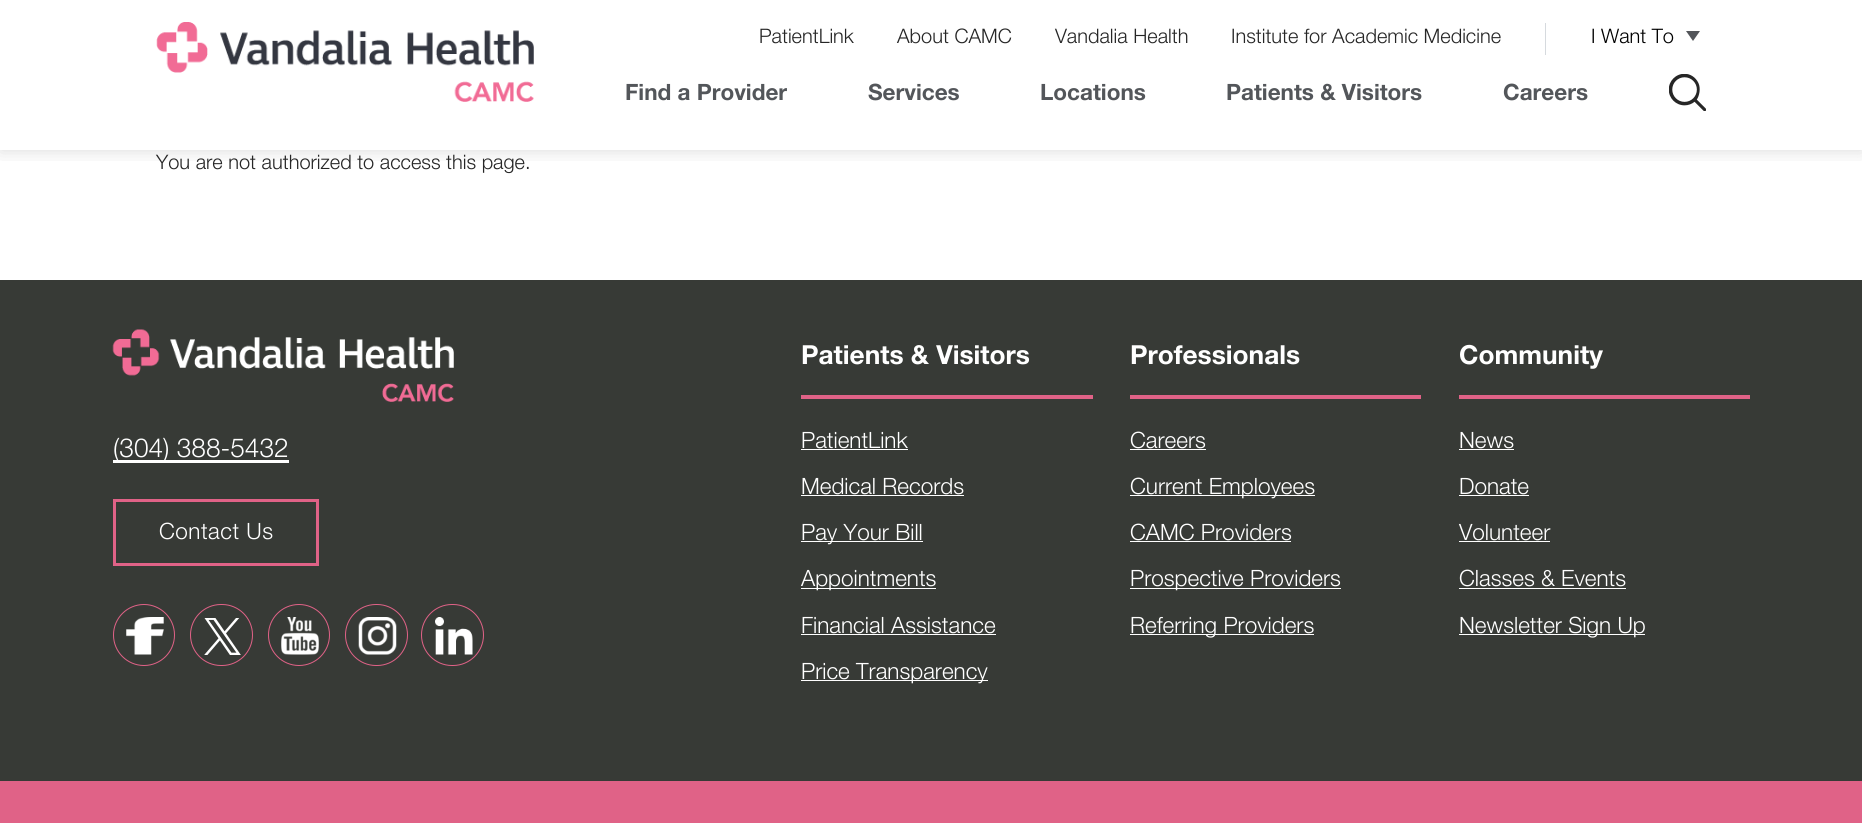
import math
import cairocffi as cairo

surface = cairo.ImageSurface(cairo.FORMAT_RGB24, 1862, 823)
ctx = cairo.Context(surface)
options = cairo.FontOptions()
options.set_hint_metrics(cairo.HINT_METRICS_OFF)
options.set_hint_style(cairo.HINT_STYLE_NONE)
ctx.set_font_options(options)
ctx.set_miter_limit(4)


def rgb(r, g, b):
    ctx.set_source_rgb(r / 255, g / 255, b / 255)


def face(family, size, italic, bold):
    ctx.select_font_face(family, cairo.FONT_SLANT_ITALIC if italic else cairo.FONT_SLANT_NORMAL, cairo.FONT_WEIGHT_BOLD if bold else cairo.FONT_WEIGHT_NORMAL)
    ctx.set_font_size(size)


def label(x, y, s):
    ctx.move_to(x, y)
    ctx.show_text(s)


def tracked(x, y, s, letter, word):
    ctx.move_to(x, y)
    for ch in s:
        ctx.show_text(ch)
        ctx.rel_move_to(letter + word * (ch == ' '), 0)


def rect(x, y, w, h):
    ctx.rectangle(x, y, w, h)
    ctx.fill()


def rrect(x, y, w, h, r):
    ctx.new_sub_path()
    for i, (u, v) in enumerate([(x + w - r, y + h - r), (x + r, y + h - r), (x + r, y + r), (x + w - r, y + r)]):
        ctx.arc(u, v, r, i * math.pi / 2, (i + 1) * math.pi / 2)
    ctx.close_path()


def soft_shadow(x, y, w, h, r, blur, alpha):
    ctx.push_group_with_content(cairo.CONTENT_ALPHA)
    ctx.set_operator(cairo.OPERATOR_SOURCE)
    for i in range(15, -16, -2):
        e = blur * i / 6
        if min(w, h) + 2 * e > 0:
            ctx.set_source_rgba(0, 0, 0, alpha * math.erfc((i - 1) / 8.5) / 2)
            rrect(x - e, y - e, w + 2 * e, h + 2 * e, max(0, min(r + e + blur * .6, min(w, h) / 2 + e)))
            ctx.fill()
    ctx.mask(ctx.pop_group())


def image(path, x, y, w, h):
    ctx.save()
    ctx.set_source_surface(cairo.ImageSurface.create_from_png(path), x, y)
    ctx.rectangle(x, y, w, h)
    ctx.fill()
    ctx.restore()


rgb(255, 255, 255)
ctx.paint()
ctx.save()
ctx.rectangle(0, 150, 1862, 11)
ctx.clip()
rgb(0, 0, 0)
soft_shadow(0, -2, 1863, 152, 0, 9.5, 0.15)
ctx.restore()
image('image0.png', 156, 22, 378, 80)
face('Helvetica Neue Light', 20, 0, 0)
rgb(38, 38, 38)
label(759, 43, 'PatientLink')
label(897, 43, 'About CAMC')
label(1055, 43, 'Vandalia Health')
label(1231, 43, 'Institute for Academic Medicine')
rgb(214, 218, 222)
rect(1545, 23, 1, 32)
rgb(0, 0, 0)
label(1591, 43, 'I Want To')
rgb(83, 86, 90)
ctx.new_path()
ctx.move_to(1693, 41)
ctx.line_to(1686, 31)
ctx.line_to(1700, 31)
ctx.close_path()
ctx.fill()
face('Helvetica Neue', 22.5, 0, 1)
label(625, 100, 'Find a Provider')
label(868, 100, 'Services')
label(1040, 100, 'Locations')
label(1226, 100, 'Patients & Visitors')
label(1503, 100, 'Careers')
image('image1.png', 1669, 74, 37, 37)
face('Helvetica Neue Light', 20, 0, 0)
rgb(38, 38, 38)
label(156, 169, 'You are not authorized to access this page.')
rgb(55, 58, 54)
rect(0, 280, 1862, 501)
image('image2.png', 112, 329, 342, 73)
rgb(255, 255, 255)
rect(113, 460, 176, 3)
face('Helvetica Neue Light', 26.25, 0, 0)
label(113, 457, '(304) 388-5432')
ctx.rectangle(114.5, 500.5, 203, 64)
rgb(224, 98, 135)
ctx.set_line_width(3)
ctx.stroke()
face('Helvetica Neue Light', 22.5, 0, 0)
rgb(255, 255, 255)
tracked(159, 539, 'Contact Us', 0.5, 0)
ctx.new_path()
ctx.arc(144, 635, 30.5, 0, 2 * math.pi)
rgb(224, 98, 135)
ctx.set_line_width(1)
ctx.stroke()
image('image3.png', 126, 617, 38, 38)
rrect(190.5, 604.5, 62, 61, 30.5)
ctx.stroke()
image('image4.png', 204, 618, 37, 37)
ctx.arc(299, 635, 30.5, 0, 2 * math.pi)
ctx.stroke()
image('image5.png', 281, 617, 38, 38)
rrect(345.5, 604.5, 62, 61, 30.5)
ctx.stroke()
image('image6.png', 358, 617, 39, 38)
rrect(421.5, 604.5, 62, 61, 30.5)
ctx.stroke()
image('image7.png', 435, 617, 38, 38)
rect(801, 395, 292, 4)
face('Helvetica Neue', 26.25, 0, 1)
rgb(255, 255, 255)
label(801, 364, 'Patients & Visitors')
face('Helvetica Neue Light', 22.5, 0, 0)
label(801, 448, 'PatientLink')
rect(801, 449, 107, 1)
label(801, 494, 'Medical Records')
rect(801, 495, 163, 1)
rect(801, 541, 122, 1)
label(801, 540, 'Pay Your Bill')
rect(801, 588, 135, 1)
label(801, 586, 'Appointments')
label(801, 633, 'Financial Assistance')
rect(801, 634, 195, 1)
rect(801, 680, 187, 1)
label(801, 679, 'Price Transparency')
rgb(224, 98, 135)
rect(1130, 395, 291, 4)
face('Helvetica Neue', 26.25, 0, 1)
rgb(255, 255, 255)
label(1130, 364, 'Professionals')
face('Helvetica Neue Light', 22.5, 0, 0)
label(1130, 448, 'Careers')
rect(1130, 449, 76, 1)
rect(1130, 495, 185, 1)
label(1130, 494, 'Current Employees')
label(1130, 540, 'CAMC Providers')
rect(1130, 541, 161, 1)
rect(1130, 588, 211, 1)
label(1130, 586, 'Prospective Providers')
rect(1130, 634, 184, 1)
label(1130, 633, 'Referring Providers')
rgb(224, 98, 135)
rect(1459, 395, 291, 4)
face('Helvetica Neue', 26.25, 0, 1)
rgb(255, 255, 255)
label(1459, 364, 'Community')
face('Helvetica Neue Light', 22.5, 0, 0)
label(1459, 448, 'News')
rect(1459, 449, 55, 1)
label(1459, 494, 'Donate')
rect(1459, 495, 70, 1)
label(1459, 540, 'Volunteer')
rect(1459, 541, 91, 1)
label(1459, 586, 'Classes & Events')
rect(1459, 588, 167, 1)
rect(1459, 634, 186, 1)
label(1459, 633, 'Newsletter Sign Up')
rgb(224, 98, 135)
rect(0, 781, 1862, 42)
surface.write_to_png('render.png')
